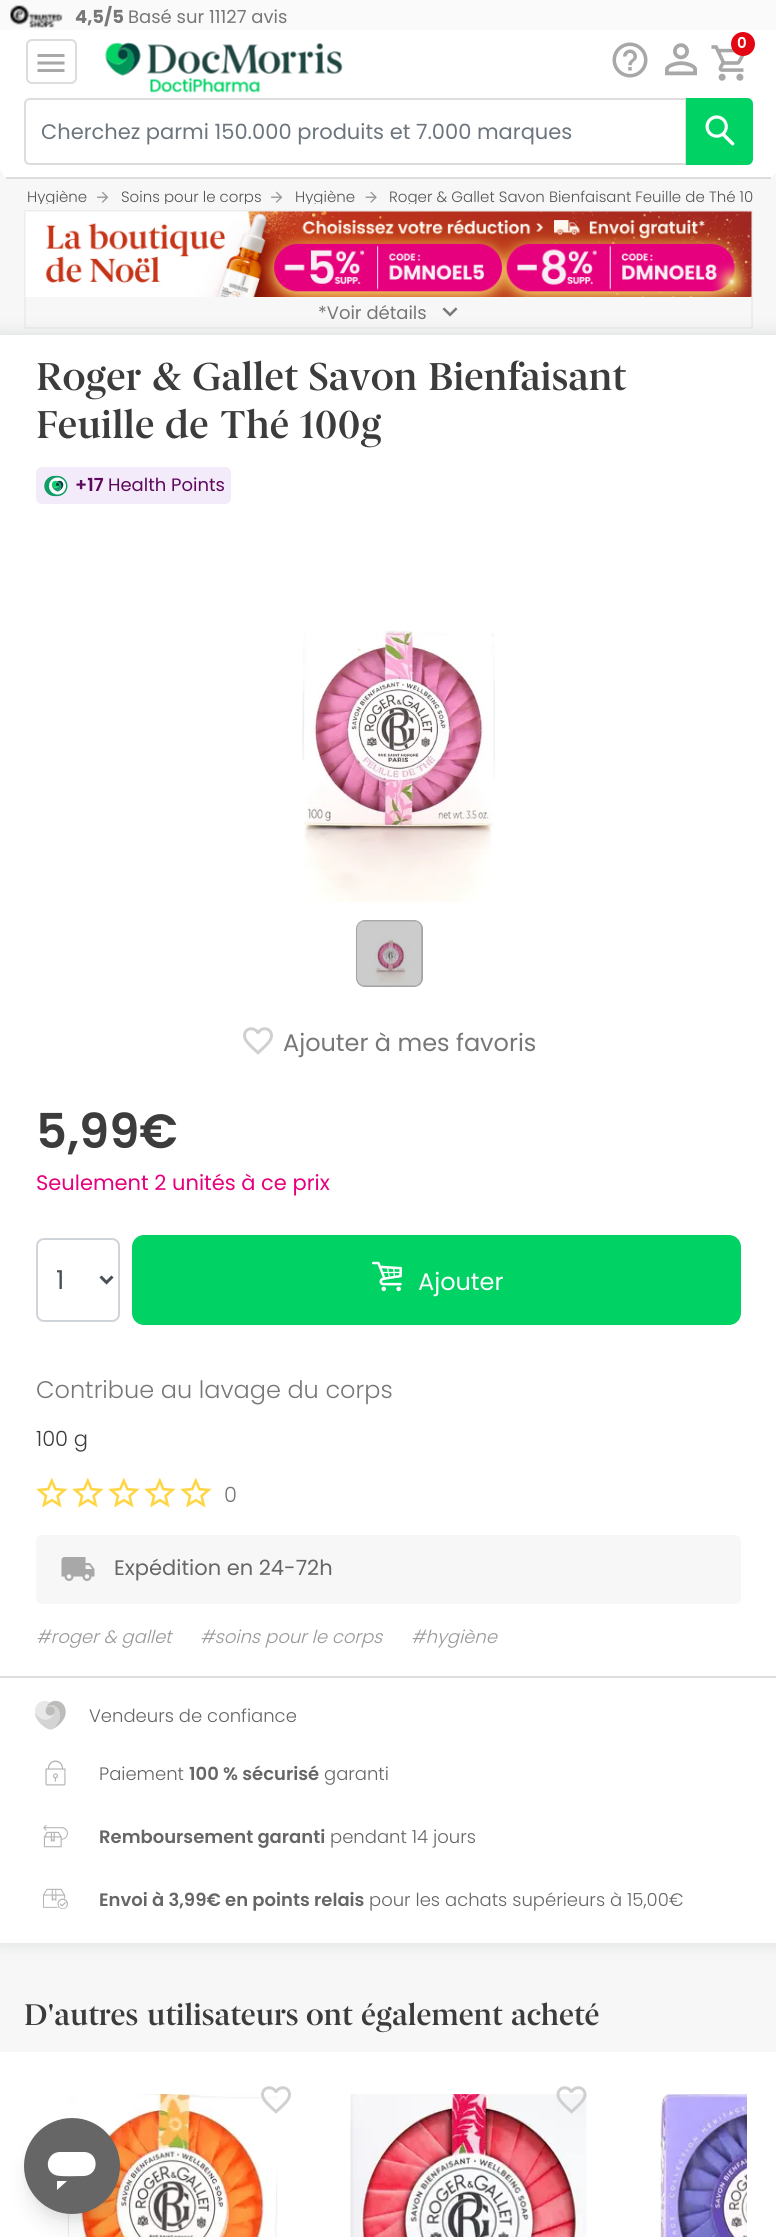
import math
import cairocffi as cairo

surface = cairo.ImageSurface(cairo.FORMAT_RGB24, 776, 2237)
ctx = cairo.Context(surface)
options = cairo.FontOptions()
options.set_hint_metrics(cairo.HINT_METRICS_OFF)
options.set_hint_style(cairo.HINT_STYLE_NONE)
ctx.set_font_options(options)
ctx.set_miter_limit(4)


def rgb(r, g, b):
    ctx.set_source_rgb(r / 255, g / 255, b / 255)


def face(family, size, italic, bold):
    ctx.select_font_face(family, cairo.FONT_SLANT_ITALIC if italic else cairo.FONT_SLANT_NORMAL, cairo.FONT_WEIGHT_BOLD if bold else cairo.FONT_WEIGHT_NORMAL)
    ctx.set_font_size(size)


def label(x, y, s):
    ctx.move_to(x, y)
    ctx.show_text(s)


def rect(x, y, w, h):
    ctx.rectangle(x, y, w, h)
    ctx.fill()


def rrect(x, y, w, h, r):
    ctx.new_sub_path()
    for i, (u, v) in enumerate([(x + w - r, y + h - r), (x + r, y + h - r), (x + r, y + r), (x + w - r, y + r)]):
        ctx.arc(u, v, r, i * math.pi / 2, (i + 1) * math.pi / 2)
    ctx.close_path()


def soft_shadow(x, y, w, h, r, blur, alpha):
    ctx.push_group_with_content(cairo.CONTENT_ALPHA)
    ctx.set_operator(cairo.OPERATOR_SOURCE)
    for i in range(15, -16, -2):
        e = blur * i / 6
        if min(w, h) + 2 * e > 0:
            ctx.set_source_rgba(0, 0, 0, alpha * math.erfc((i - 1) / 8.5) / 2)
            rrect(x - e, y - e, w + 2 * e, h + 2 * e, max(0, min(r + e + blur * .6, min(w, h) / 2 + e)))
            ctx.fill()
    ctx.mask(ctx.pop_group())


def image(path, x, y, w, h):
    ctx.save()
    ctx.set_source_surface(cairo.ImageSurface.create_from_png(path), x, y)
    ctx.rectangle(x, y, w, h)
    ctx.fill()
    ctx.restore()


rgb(247, 247, 247)
ctx.paint()
rgb(255, 255, 255)
ctx.new_path()
ctx.move_to(0, 0)
ctx.line_to(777, 0)
ctx.line_to(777, 167)
ctx.curve_to(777, 173.5, 771.5, 179, 765, 179)
ctx.line_to(12, 179)
ctx.curve_to(5.5, 179, 0, 173.5, 0, 167)
ctx.close_path()
ctx.fill()
rgb(221, 221, 221)
rect(6, 177, 765, 2)
rgb(250, 250, 250)
rect(0, 0, 776, 30)
image('image0.png', 10, 5, 53, 23)
face('Poppins', 18, 0, 1)
rgb(119, 119, 119)
label(75, 23, '4,5/5')
face('Poppins', 18, 0, 0)
label(128, 23, 'Basé sur 11127 avis')
rrect(27, 40, 49, 43, 5)
rgb(221, 221, 221)
ctx.stroke()
image('image1.png', 37, 54, 28, 18)
image('image2.png', 105, 42, 238, 51)
image('image3.png', 612, 42, 36, 36)
image('image4.png', 665, 43, 32, 33)
image('image5.png', 711, 45, 34, 36)
rgb(227, 6, 19)
ctx.arc(743, 44, 12, 0, 2 * math.pi)
ctx.fill()
face('Poppins SemiBold', 15, 0, 0)
rgb(255, 255, 255)
label(737, 48, '0')
ctx.new_path()
ctx.move_to(30, 99)
ctx.line_to(686, 99)
ctx.line_to(686, 164)
ctx.line_to(30, 164)
ctx.curve_to(27, 164, 25, 162, 25, 159)
ctx.line_to(25, 104)
ctx.curve_to(25, 101, 27, 99, 30, 99)
ctx.close_path()
rgb(221, 221, 221)
ctx.stroke()
face('Poppins', 21, 0, 0)
rgb(108, 117, 125)
label(41, 139, 'Cherchez parmi 150.000 produits et 7.000 marques')
rgb(0, 210, 100)
ctx.new_path()
ctx.move_to(686, 98)
ctx.line_to(747, 98)
ctx.curve_to(750.5, 98, 753, 100.5, 753, 104)
ctx.line_to(753, 159)
ctx.curve_to(753, 162.5, 750.5, 165, 747, 165)
ctx.line_to(686, 165)
ctx.close_path()
ctx.fill()
image('image6.png', 705, 115, 30, 31)
ctx.save()
ctx.rectangle(24, 183, 729, 21)
ctx.clip()
face('Poppins Light', 15, 0, 0)
rgb(85, 85, 85)
label(27, 202, 'Hygiène')
ctx.restore()
image('image7.png', 97, 191, 12, 12)
ctx.save()
ctx.rectangle(24, 183, 729, 21)
ctx.clip()
face('Poppins Light', 15, 0, 0)
rgb(85, 85, 85)
label(121, 202, 'Soins pour le corps')
ctx.restore()
image('image7.png', 271, 191, 12, 12)
ctx.save()
ctx.rectangle(24, 183, 729, 21)
ctx.clip()
face('Poppins Light', 15, 0, 0)
rgb(85, 85, 85)
label(295, 202, 'Hygiène')
ctx.restore()
image('image8.png', 365, 191, 12, 12)
ctx.save()
ctx.rectangle(24, 183, 729, 21)
ctx.clip()
face('Poppins Light', 15, 0, 0)
rgb(85, 85, 85)
label(389, 202, 'Roger & Gallet Savon Bienfaisant Feuille de Thé 10')
ctx.restore()
ctx.rectangle(25, 211, 727, 117)
rgb(237, 237, 237)
ctx.stroke()
image('image9.png', 25, 211, 727, 86)
rgb(110, 119, 129)
soft_shadow(-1, 333, 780, 1611, 0, 7.5, 0.2)
face('Poppins', 18, 0, 0)
rgb(119, 119, 119)
label(318, 319, '*Voir détails')
image('image10.png', 442, 307, 16, 10)
rgb(255, 255, 255)
rect(0, 335, 776, 1608)
face('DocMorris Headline', 39, 0, 0)
rgb(60, 60, 60)
label(36, 390, 'Roger')
label(152, 390, '&')
label(192, 390, 'Gallet')
label(308, 390, 'Savon')
label(428, 390, 'Bienfaisant')
label(36, 438, 'Feuille')
label(165, 438, 'de')
label(220, 438, 'Thé')
label(300, 438, '100g')
rgb(243, 234, 250)
rrect(37, 468, 193, 35, 5)
ctx.fill_preserve()
ctx.stroke()
image('image11.png', 44, 475, 24, 22)
face('Poppins SemiBold', 18, 0, 0)
rgb(94, 9, 92)
label(75, 491, '+17')
face('Poppins', 18, 0, 0)
label(108, 491, 'Health Points')
image('image12.png', 302, 630, 193, 273)
rrect(357, 921, 65, 65, 8)
rgb(163, 163, 163)
ctx.stroke()
image('image13.png', 357, 920, 65, 66)
image('image14.png', 243, 1027, 30, 28)
face('Poppins', 24, 0, 0)
rgb(119, 119, 119)
label(283, 1051, 'Ajouter à mes favoris')
face('Poppins SemiBold', 48, 0, 0)
rgb(60, 60, 60)
label(36, 1148, '5,99€')
face('Poppins', 21, 0, 0)
rgb(230, 0, 126)
label(36, 1190, 'Seulement 2 unités à ce prix')
rrect(37, 1239, 82, 82, 7)
rgb(206, 212, 218)
ctx.stroke()
ctx.new_path()
ctx.move_to(100.5, 1276.5)
ctx.line_to(106.5, 1282.5)
ctx.line_to(112.5, 1276.5)
rgb(73, 80, 87)
ctx.set_line_width(3)
ctx.stroke()
face('Poppins', 26, 0, 0)
label(56, 1289, '1')
rgb(0, 210, 100)
rrect(133, 1236, 607, 88, 11)
ctx.fill_preserve()
ctx.set_line_width(2)
ctx.stroke()
image('image15.png', 372, 1261, 30, 31)
face('Poppins', 24, 0, 0)
rgb(255, 255, 255)
label(418, 1290, 'Ajouter')
face('Poppins Light', 24, 0, 0)
rgb(119, 119, 119)
label(36, 1398, 'Contribue au lavage du corps')
face('Poppins Light', 21, 0, 0)
rgb(60, 60, 60)
label(36, 1446, '100 g')
image('image16.png', 36, 1478, 32, 30)
image('image16.png', 72, 1478, 32, 30)
image('image16.png', 108, 1478, 32, 30)
image('image16.png', 144, 1478, 32, 30)
image('image16.png', 180, 1478, 32, 30)
rgb(119, 119, 119)
label(224, 1502, '0')
rgb(247, 247, 247)
rrect(36, 1535, 705, 69, 6)
ctx.fill()
image('image17.png', 61, 1557, 34, 24)
face('Poppins', 21, 0, 0)
rgb(102, 102, 102)
label(114, 1575, 'Expédition en 24-72h')
face('Poppins Light', 18, 1, 0)
rgb(153, 153, 153)
label(36, 1643, '#roger & gallet')
label(200, 1643, '#soins pour le corps')
label(411, 1643, '#hygiène')
rgb(221, 221, 221)
rect(0, 1676, 776, 2)
image('image18.png', 35, 1700, 31, 30)
face('Poppins Light', 18, 0, 0)
rgb(102, 102, 102)
label(89, 1722, 'Vendeurs de confiance')
image('image19.png', 45, 1760, 21, 26)
label(99, 1780, 'Paiement')
face('Poppins SemiBold', 18, 0, 0)
label(189, 1780, '100 % sécurisé')
face('Poppins Light', 18, 0, 0)
label(324, 1780, 'garanti')
image('image20.png', 43, 1825, 25, 23)
face('Poppins SemiBold', 18, 0, 0)
label(99, 1843, 'Remboursement garanti')
face('Poppins Light', 18, 0, 0)
label(330, 1843, 'pendant 14 jours')
image('image21.png', 43, 1888, 25, 22)
face('Poppins SemiBold', 18, 0, 0)
label(99, 1906, 'Envoi à 3,99€ en points relais')
face('Poppins Light', 18, 0, 0)
label(369, 1906, 'pour les achats supérieurs à 15,00€')
face('DocMorris Headline', 30, 0, 0)
rgb(60, 60, 60)
label(24, 2025, 'D\'autres')
label(147, 2025, 'utilisateurs')
label(306, 2025, 'ont')
label(361, 2025, 'également')
label(511, 2025, 'acheté')
rgb(255, 255, 255)
rect(0, 2052, 776, 185)
image('image23.png', 67, 2094, 211, 143)
image('image22.png', 261, 2086, 30, 28)
image('image25.png', 350, 2094, 237, 143)
image('image24.png', 556, 2086, 31, 28)
image('image26.png', 660, 2094, 87, 143)
rgb(0, 0, 0)
soft_shadow(27, 2127, 90, 90, 45, 4.5, 0.05)
soft_shadow(29, 2138, 87, 87, 43.5, 11, 0.1)
rgb(102, 102, 102)
ctx.arc(72, 2166, 48, 0, 2 * math.pi)
ctx.fill()
rgb(255, 255, 255)
ctx.new_path()
ctx.move_to(67, 2181)
ctx.line_to(57, 2190)
ctx.line_to(57, 2181)
ctx.close_path()
ctx.move_to(84, 2152)
ctx.curve_to(99, 2152, 100, 2175, 84, 2176)
ctx.curve_to(78, 2176, 60, 2177, 55, 2175)
ctx.curve_to(43, 2170, 47, 2152, 60, 2152)
ctx.close_path()
ctx.fill()
surface.write_to_png('render.png')
